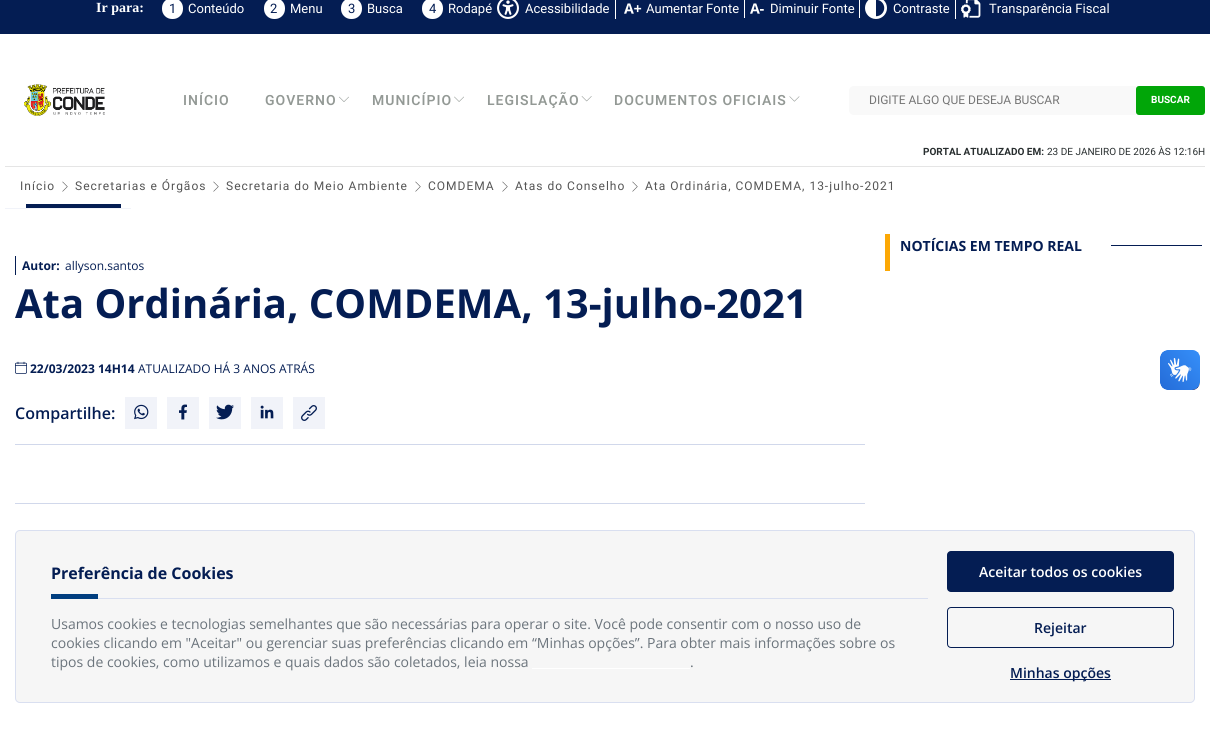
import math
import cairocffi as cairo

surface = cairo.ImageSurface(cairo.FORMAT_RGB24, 1210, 740)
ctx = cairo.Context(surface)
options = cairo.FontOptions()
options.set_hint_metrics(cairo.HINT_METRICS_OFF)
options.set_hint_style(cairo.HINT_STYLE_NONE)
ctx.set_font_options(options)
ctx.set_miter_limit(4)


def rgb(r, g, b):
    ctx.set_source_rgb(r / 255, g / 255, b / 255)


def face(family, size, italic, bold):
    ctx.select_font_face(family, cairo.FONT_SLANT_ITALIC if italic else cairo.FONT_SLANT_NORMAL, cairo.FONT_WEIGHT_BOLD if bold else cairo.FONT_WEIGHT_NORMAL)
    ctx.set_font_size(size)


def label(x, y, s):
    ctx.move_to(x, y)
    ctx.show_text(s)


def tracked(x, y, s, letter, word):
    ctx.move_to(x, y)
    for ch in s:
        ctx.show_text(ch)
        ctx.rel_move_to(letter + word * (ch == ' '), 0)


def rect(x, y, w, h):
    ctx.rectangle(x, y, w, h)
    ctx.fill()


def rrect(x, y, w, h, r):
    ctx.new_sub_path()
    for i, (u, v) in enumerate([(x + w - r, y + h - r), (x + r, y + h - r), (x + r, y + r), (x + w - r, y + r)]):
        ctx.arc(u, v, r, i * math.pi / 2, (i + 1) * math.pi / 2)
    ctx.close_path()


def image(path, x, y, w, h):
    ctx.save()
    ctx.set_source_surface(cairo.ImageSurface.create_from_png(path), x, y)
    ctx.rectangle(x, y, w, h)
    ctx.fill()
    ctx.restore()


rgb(255, 255, 255)
ctx.paint()
rgb(4, 29, 83)
rect(0, 0, 1210, 34)
face('Liberation Serif', 14, 0, 1)
rgb(255, 255, 255)
label(96, 12, 'Ir para:')
rrect(162, -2, 21, 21, 10)
ctx.fill()
face('Heebo', 13, 0, 0)
rgb(4, 29, 83)
label(169, 13, '1')
rgb(255, 255, 255)
label(188, 13, 'Conteúdo')
rrect(264, -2, 21, 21, 10)
ctx.fill()
rgb(4, 29, 83)
label(270, 13, '2')
rgb(255, 255, 255)
label(290, 13, 'Menu')
rrect(341, -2, 21, 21, 10)
ctx.fill()
rgb(4, 29, 83)
label(348, 13, '3')
rgb(255, 255, 255)
label(367, 13, 'Busca')
rrect(422, -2, 21, 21, 10)
ctx.fill()
rgb(4, 29, 83)
label(429, 13, '4')
rgb(255, 255, 255)
label(448, 13, 'Rodapé')
rect(615, 0, 1, 19)
image('image0.png', 497, 0, 22, 19)
label(525, 13, 'Acessibilidade')
rect(744, 0, 1, 18)
image('image1.png', 624, 3, 18, 11)
label(646, 13, 'Aumentar Fonte')
rect(859, 0, 1, 18)
image('image2.png', 750, 3, 14, 11)
label(770, 13, 'Diminuir Fonte')
rect(955, 0, 1, 19)
image('image3.png', 865, 0, 22, 19)
label(893, 13, 'Contraste')
image('image4.png', 961, 0, 20, 18)
label(989, 13, 'Transparência Fiscal')
rgb(229, 229, 229)
rect(5, 166, 1200, 1)
image('image5.png', 24, 84, 81, 32)
face('Heebo SemiBold', 14, 0, 0)
rgb(147, 153, 149)
tracked(183, 105, 'INÍCIO', 1, 0)
tracked(265, 105, 'GOVERNO', 1, 0)
image('image6.png', 339, 96, 10, 6)
tracked(372, 105, 'MUNICÍPIO', 1, 0)
image('image7.png', 454, 96, 10, 6)
tracked(487, 105, 'LEGISLAÇÃO', 1, 0)
image('image8.png', 581, 96, 11, 6)
tracked(614, 105, 'DOCUMENTOS OFICIAIS', 1, 0)
image('image9.png', 789, 96, 11, 6)
rgb(249, 249, 249)
ctx.new_path()
ctx.move_to(854, 86)
ctx.line_to(1136, 86)
ctx.line_to(1136, 115)
ctx.line_to(854, 115)
ctx.curve_to(851, 115, 849, 113, 849, 110)
ctx.line_to(849, 91)
ctx.curve_to(849, 88, 851, 86, 854, 86)
ctx.close_path()
ctx.fill()
face('Roboto', 12, 0, 0)
rgb(117, 117, 117)
label(869, 104, 'DIGITE ALGO QUE DESEJA BUSCAR')
rgb(1, 166, 8)
rrect(1136, 86, 69, 29, 3)
ctx.fill()
face('Heebo', 10, 0, 1)
rgb(255, 255, 255)
label(1151, 103, 'BUSCAR')
face('Roboto', 10, 0, 1)
rgb(40, 46, 47)
label(923, 155, 'PORTAL ATUALIZADO EM:')
face('Roboto', 10, 0, 0)
label(1047, 155, '23 DE JANEIRO DE 2026 ÀS 12:16H')
face('Heebo', 12, 0, 0)
rgb(85, 85, 85)
tracked(20, 190, 'Início', 1, 0)
image('image10.png', 62, 181, 6, 11)
tracked(75, 190, 'Secretarias e Órgãos', 1, 0)
image('image10.png', 213, 181, 6, 11)
tracked(226, 190, 'Secretaria do Meio Ambiente', 1, 0)
image('image10.png', 415, 181, 6, 11)
tracked(428, 190, 'COMDEMA', 1, 0)
image('image10.png', 502, 181, 6, 11)
tracked(515, 190, 'Atas do Conselho', 1, 0)
image('image10.png', 632, 181, 6, 11)
tracked(645, 190, 'Ata Ordinária, COMDEMA, 13-julho-2021', 1, 0)
rgb(241, 243, 249)
rect(5, 208, 126, 1)
rgb(4, 29, 83)
rect(26, 204, 95, 4)
rgb(252, 168, 5)
rect(885, 234, 5, 37)
face('Open Sans', 14, 0, 1)
rgb(4, 29, 83)
label(900, 251, 'NOTÍCIAS EM TEMPO REAL')
rect(1111, 245, 91, 1)
rect(15, 256, 1, 19)
face('Open Sans', 12, 0, 1)
label(22, 270, 'Autor:')
face('Open Sans', 12, 0, 0)
label(65, 270, 'allyson.santos')
face('Open Sans', 40, 0, 1)
label(15, 318, 'Ata Ordinária, COMDEMA, 13-julho-2021')
image('image11.png', 15, 361, 12, 13)
face('Open Sans', 12, 0, 1)
label(30, 373, '22/03/2023 14H14')
face('Open Sans', 12, 0, 0)
label(138, 373, 'ATUALIZADO HÁ 3 ANOS ATRÁS')
rgb(209, 216, 235)
rect(15, 444, 850, 1)
face('Open Sans SemiBold', 16, 0, 0)
rgb(4, 29, 83)
label(15, 419, 'Compartilhe:')
rgb(241, 243, 249)
rect(125, 397, 32, 32)
image('image12.png', 134, 404, 15, 16)
rect(167, 397, 32, 32)
image('image13.png', 179, 404, 8, 16)
rect(209, 397, 32, 32)
image('image14.png', 216, 404, 18, 16)
rect(251, 397, 32, 32)
image('image15.png', 260, 405, 14, 14)
rect(293, 397, 32, 32)
image('image16.png', 301, 405, 16, 16)
rgb(209, 216, 235)
rect(15, 503, 850, 1)
image('image17.png', 1160, 350, 40, 40)
image('image18.png', 1160, 350, 40, 40)
rgb(246, 246, 246)
rrect(15.5, 530.5, 1179, 172, 4.5)
ctx.fill_preserve()
rgb(217, 223, 240)
ctx.set_line_width(1)
ctx.stroke()
face('Open Sans', 16, 0, 1)
rgb(4, 29, 83)
label(51, 579, 'Preferência de Cookies')
rgb(1, 62, 127)
rect(51, 594, 47, 5)
rgb(217, 223, 240)
rect(98, 598, 830, 1)
face('Open Sans', 14, 0, 0)
rgb(107, 116, 124)
label(51, 629, 'Usamos cookies e tecnologias semelhantes que são necessárias para operar o site. Você pode consentir com o nosso uso de')
label(51, 648, 'cookies clicando em "Aceitar" ou gerenciar suas preferências clicando em “Minhas opções”. Para obter mais informações sobre os')
label(51, 667, 'tipos de cookies, como utilizamos e quais dados são coletados, leia nossa')
label(690, 667, '.')
rgb(255, 255, 255)
rect(532, 668, 158, 1)
rgb(4, 29, 83)
rrect(947, 551, 227, 41, 4)
ctx.fill()
face('Open Sans SemiBold', 14, 0, 0)
rgb(255, 255, 255)
label(979, 577, 'Aceitar todos os cookies')
rrect(947.5, 607.5, 226, 40, 3.5)
rgb(4, 29, 83)
ctx.stroke()
label(1034, 633, 'Rejeitar')
rect(1010, 679, 101, 1)
label(1010, 678, 'Minhas opções')
surface.write_to_png('render.png')
